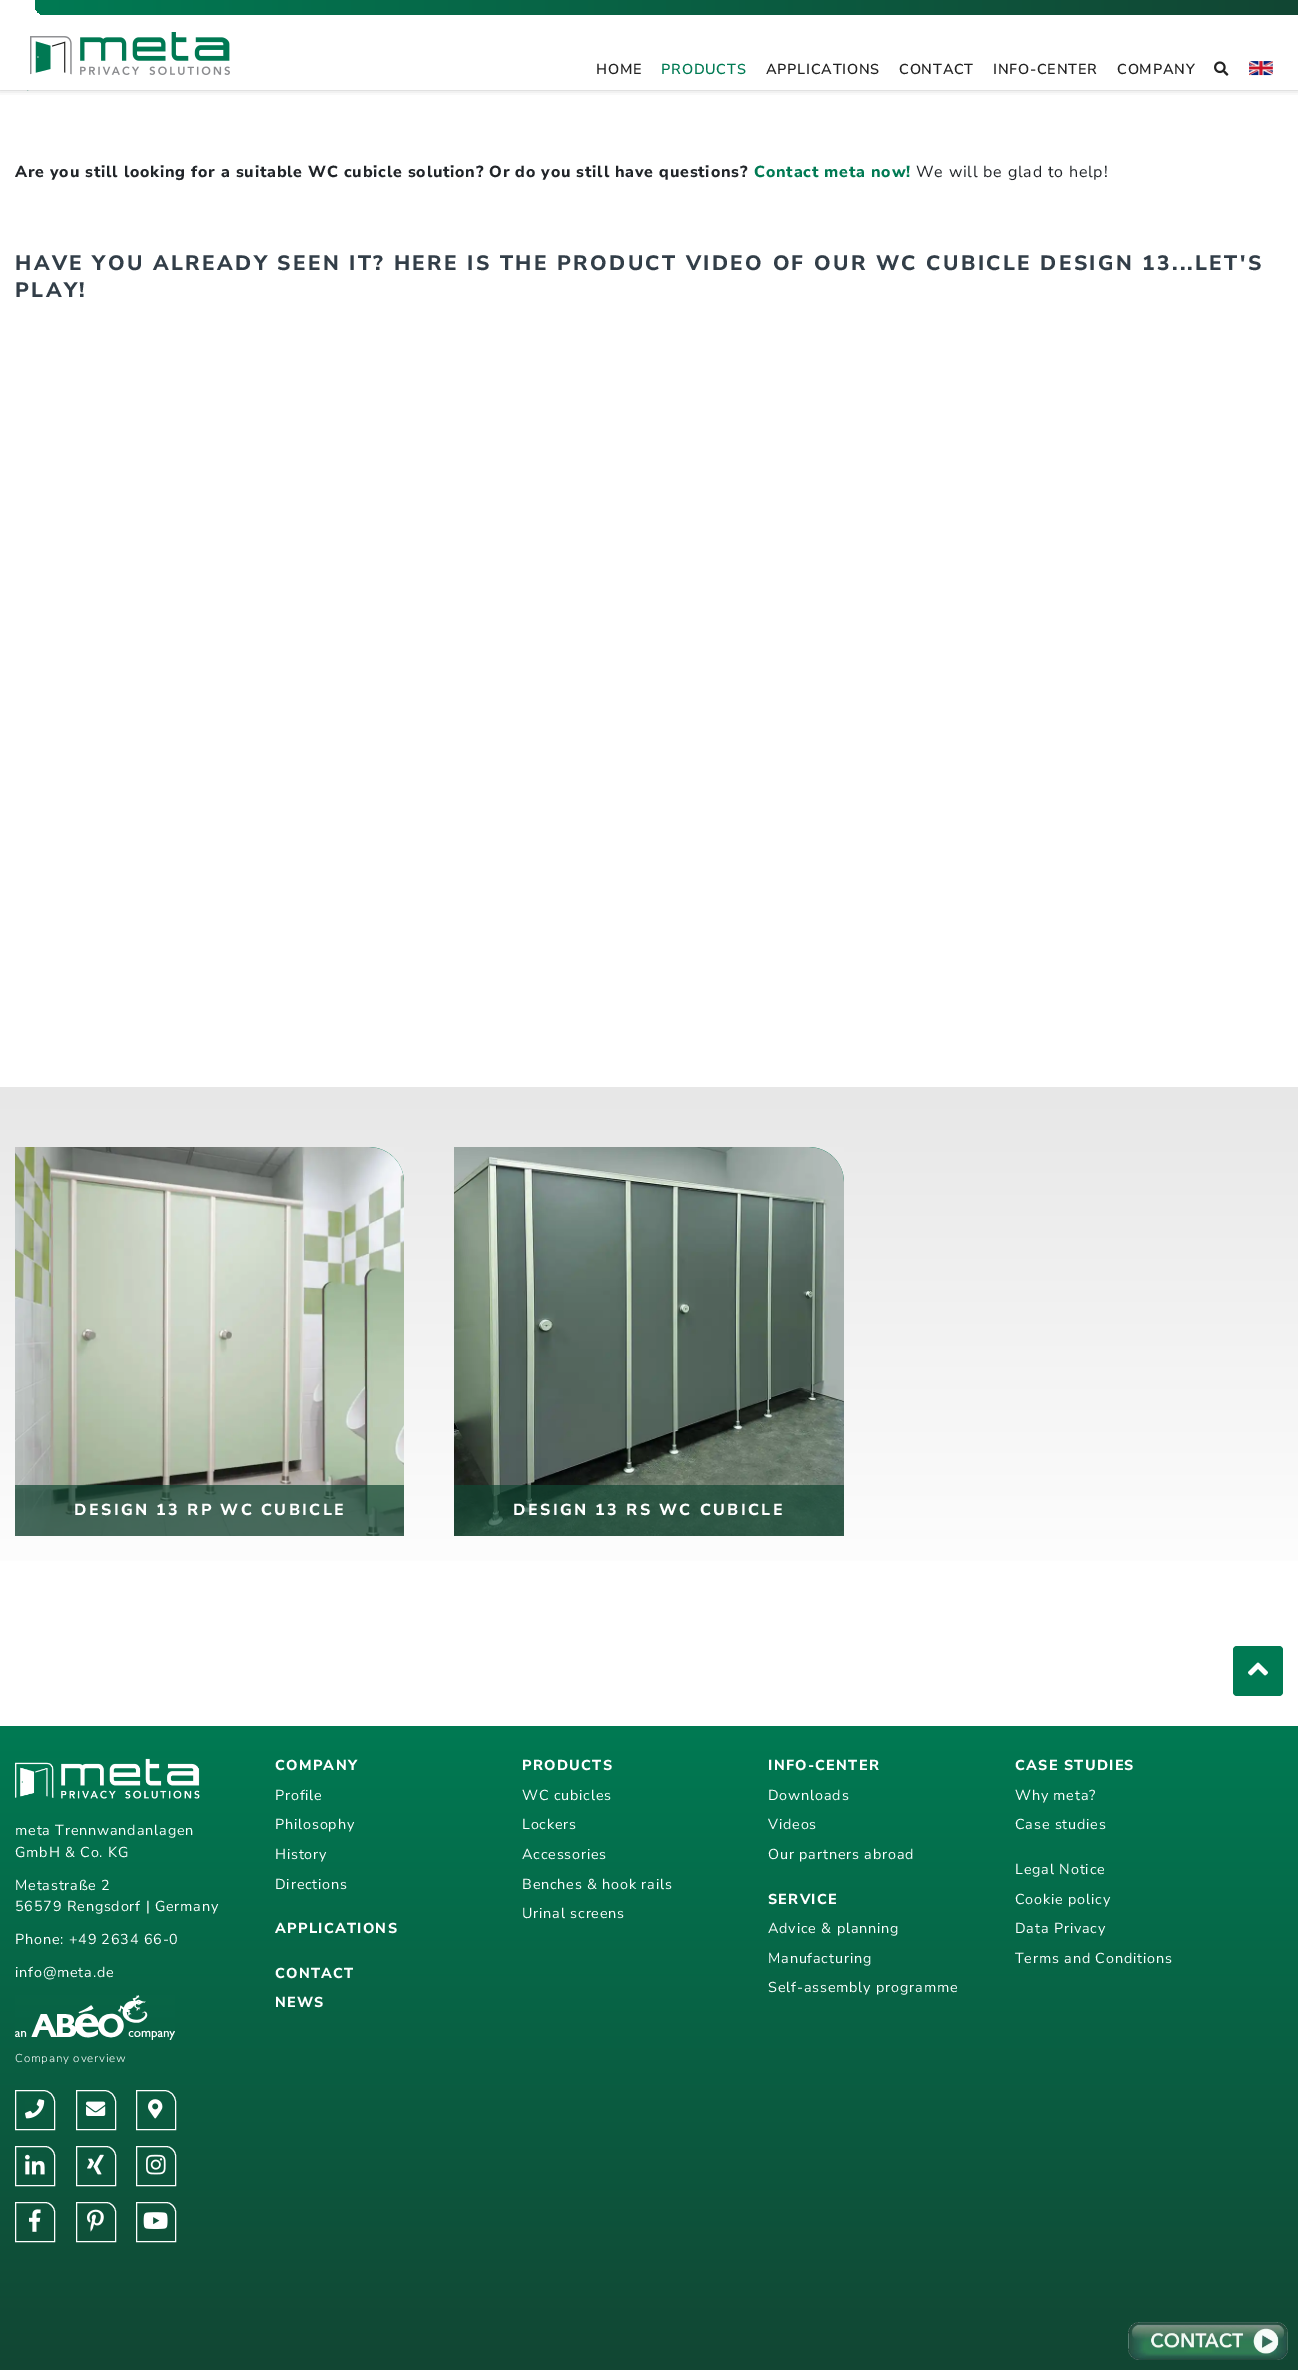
%!PS-Adobe-3.0
%%BoundingBox: 0 0 1298 2370
%%LanguageLevel: 3
%%Pages: 1
%%EndComments
%%BeginProlog
/setink { 3 { 255 div 3 1 roll } repeat setrgbcolor } def
/usefont { [ exch dup neg 0 0 3 -1 roll 0 0 ] selectfont } def
/fillbox { setink rectfill } def
/setalpha { dup .setfillconstantalpha .setstrokeconstantalpha } def
/rrect { 5 dict begin { /r /h /w /y /x } { exch def } forall
  x r add y moveto x w add y 2 copy h add r arct x w add y h add x 1 index r arct
  x y h add x y r arct x y 2 copy exch w add exch r arct closepath end } def
/softshadow { 12 dict begin { /a /b /q /h /w /y /x } { exch def } forall gsave /was 0 def
  9 -2 -9 { dup b mul 4 div /e exch def 1 sub .425 mul 2.718 exch exp 1 add a .99 .min exch div /now exch def
    1 1 now sub 1 was sub div sub setalpha /was now def
    w h .min e 2 mul add 0 gt { x e sub y e sub w e 2 mul add h e 2 mul add
      q e add b .6 mul add w h .min 2 div e add .min 0 .max rrect fill } if } for grestore end } def
/drawimage { 5 dict begin { /h /w /y /x /name } { exch def } forall
  gsave x y translate w h scale
  w h 8 [w 0 0 h 0 0] name (r) file false 3 colorimage grestore end } def
%%EndProlog
%%BeginSetup
<< /PageSize [1298 2370] /PageUsesTransparency true >> setpagedevice
%%EndSetup
%%Page: 1 1
0 .pushpdf14devicefilter
0 2370 translate 1 -1 scale
4 setmiterlimit
0 0 1298 2370 255 255 255 fillbox
(assets/img4.rgb) 27 90 2 1 drawimage
51 51 51 setink
0 -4 1298 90 0 4 1 softshadow
0 0 1298 90 255 255 255 fillbox
gsave 35 0 moveto 1298 0 lineto 1298 15 lineto 45 15 lineto 39.5 15 35 10.5 35 5 curveto closepath clip newpath
<< /ShadingType 2 /ColorSpace /DeviceRGB /Coords [35 7.5 1298 7.5] /Extend [true true] /Function << /FunctionType 2 /Domain [0 1] /C0 [0 0.478 0.325] /C1 [0.071 0.275 0.2] /N 1 >> >> shfill grestore
(assets/img1.rgb) 30 32 200 43 drawimage
/NunitoSans-SemiBold 14.4 usefont
34 34 34 setink
596 74 moveto 0.8 0 (HOME) ashow
0 122 83 setink
661 74 moveto 0.8 0 (PRODUCTS) ashow
34 34 34 setink
766 74 moveto 0.8 0 (APPLICATIONS) ashow
899 74 moveto 0.8 0 (CONTACT) ashow
993 74 moveto 0.8 0 (INFO-CENTER) ashow
1117 74 moveto 0.8 0 (COMPANY) ashow
(assets/img2.rgb) 1214 61 15 15 drawimage
(assets/img3.rgb) 1249 61 24 15 drawimage
/NunitoSans-ExtraBold 16 usefont
33 37 41 setink
15 177 moveto 0.8 0 (Are you still looking for a suitable WC cubicle solution? Or do you still have questions?) ashow
0 122 83 setink
754 177 moveto 0.8 0 (Contact meta now!) ashow
/NunitoSans-Regular 16 usefont
33 37 41 setink
916 177 moveto 0.8 0 (We will be glad to help!) ashow
/NunitoSans-ExtraBold 20.8 usefont
50 62 72 setink
15 270 moveto 2.4 0 (HAVE YOU ALREADY SEEN IT? HERE IS THE PRODUCT VIDEO OF OUR WC CUBICLE DESIGN 13...LET'S) ashow
15 297 moveto 2.4 0 (PLAY!) ashow
gsave 0 1087 moveto 1298 1087 lineto 1298 1561 lineto 0 1561 lineto closepath clip newpath
<< /ShadingType 2 /ColorSpace /DeviceRGB /Coords [649 1087 649 1616] /Extend [true true] /Function << /FunctionType 2 /Domain [0 1] /C0 [0.906 0.906 0.906] /C1 [1 1 1] /N 1 >> >> shfill grestore
gsave 15 1147 moveto 369 1147 lineto 388.5 1147 404 1162.5 404 1182 curveto 404 1536 lineto 15 1536 lineto closepath clip newpath
<< /ShadingType 2 /ColorSpace /DeviceRGB /Coords [210 1536 210 1147] /Extend [true true] /Function << /FunctionType 2 /Domain [0 1] /C0 [0.071 0.275 0.2] /C1 [0 0.478 0.325] /N 1 >> >> shfill grestore
(assets/img5.rgb) 15 1147 389 389 drawimage
0.7 setalpha
15 1485 389 51 18 70 51 fillbox
/NunitoSans-ExtraBold 16 usefont
1 setalpha
255 255 255 setink
74 1515 moveto 2.4 0 (DESIGN 13 RP WC CUBICLE) ashow
gsave 454 1147 moveto 809 1147 lineto 828.5 1147 844 1162.5 844 1182 curveto 844 1536 lineto 454 1536 lineto closepath clip newpath
<< /ShadingType 2 /ColorSpace /DeviceRGB /Coords [649 1536 649 1147] /Extend [true true] /Function << /FunctionType 2 /Domain [0 1] /C0 [0.071 0.275 0.2] /C1 [0 0.478 0.325] /N 1 >> >> shfill grestore
(assets/img6.rgb) 454 1147 390 389 drawimage
0.7 setalpha
454 1485 390 51 18 70 51 fillbox
1 setalpha
255 255 255 setink
513 1515 moveto 2.4 0 (DESIGN 13 RS WC CUBICLE) ashow
0 122 83 setink
1233 1646 50 50 4 rrect fill
(assets/img7.rgb) 1248 1662 20 14 drawimage
gsave 0 1726 moveto 1298 1726 lineto 1298 2370 lineto 0 2370 lineto closepath clip newpath
<< /ShadingType 2 /ColorSpace /DeviceRGB /Coords [649 1726 649 2370] /Extend [true true] /Function << /FunctionType 2 /Domain [0 1] /C0 [0 0.478 0.325] /C1 [0.071 0.275 0.2] /N 1 >> >> shfill grestore
(assets/img8.rgb) 15 1758 185 41 drawimage
/NunitoSans-Regular 14.4 usefont
255 255 255 setink
15 1835 moveto 0.8 0 (meta Trennwandanlagen) ashow
15 1857 moveto 0.8 0 (GmbH & Co. KG) ashow
15 1890 moveto 0.8 0 (Metastraße 2) ashow
15 1911 moveto 0.8 0 (56579 Rengsdorf | Germany) ashow
15 1944 moveto 0.8 0 (Phone: +49 2634 66-0) ashow
15 1977 moveto 0.8 0 (info@meta.de) ashow
(assets/img9.rgb) 15 1995 160 45 drawimage
/NunitoSans-Light 11.5 usefont
15 2062 moveto 0.8 0 (Company overview) ashow
15.5 2090.5 moveto 43 2090.5 lineto 49.5 2090.5 54.5 2095.5 54.5 2102 curveto 54.5 2129.5 lineto 15.5 2129.5 lineto closepath stroke
(assets/img10.rgb) 25 2099 20 20 drawimage
76.5 2090.5 moveto 104 2090.5 lineto 110.5 2090.5 115.5 2095.5 115.5 2102 curveto 115.5 2129.5 lineto 76.5 2129.5 lineto closepath stroke
(assets/img11.rgb) 86 2101 20 15 drawimage
136.5 2090.5 moveto 164 2090.5 lineto 170.5 2090.5 175.5 2095.5 175.5 2102 curveto 175.5 2129.5 lineto 136.5 2129.5 lineto closepath stroke
(assets/img12.rgb) 148 2099 15 20 drawimage
15.5 2146.5 moveto 45 2146.5 lineto 50 2146.5 54.5 2151 54.5 2156 curveto 54.5 2185.5 lineto 15.5 2185.5 lineto closepath stroke
(assets/img13.rgb) 25 2154 20 21 drawimage
76.5 2146.5 moveto 106 2146.5 lineto 111 2146.5 115.5 2151 115.5 2156 curveto 115.5 2185.5 lineto 76.5 2185.5 lineto closepath stroke
(assets/img14.rgb) 87 2154 17 21 drawimage
136.5 2146.5 moveto 166 2146.5 lineto 171 2146.5 175.5 2151 175.5 2156 curveto 175.5 2185.5 lineto 136.5 2185.5 lineto closepath stroke
(assets/img15.rgb) 146 2154 20 21 drawimage
15.5 2202.5 moveto 45 2202.5 lineto 50 2202.5 54.5 2207 54.5 2212 curveto 54.5 2241.5 lineto 15.5 2241.5 lineto closepath stroke
(assets/img16.rgb) 29 2209 12 23 drawimage
76.5 2202.5 moveto 106 2202.5 lineto 111 2202.5 115.5 2207 115.5 2212 curveto 115.5 2241.5 lineto 76.5 2241.5 lineto closepath stroke
(assets/img17.rgb) 87 2209 17 23 drawimage
136.5 2202.5 moveto 166 2202.5 lineto 171 2202.5 175.5 2207 175.5 2212 curveto 175.5 2241.5 lineto 136.5 2241.5 lineto closepath stroke
(assets/img18.rgb) 143 2212 25 17 drawimage
/NunitoSans-ExtraBold 14.4 usefont
275 1770 moveto 1.25 0 (COMPANY) ashow
/NunitoSans-Regular 14.4 usefont
275 1800 moveto 0.8 0 (Profile) ashow
275 1829 moveto 0.8 0 (Philosophy) ashow
275 1859 moveto 0.8 0 (History) ashow
275 1889 moveto 0.8 0 (Directions) ashow
/NunitoSans-ExtraBold 14.4 usefont
275 1933 moveto 1.25 0 (APPLICATIONS) ashow
275 1978 moveto 1.25 0 (CONTACT) ashow
275 2007 moveto 1.25 0 (NEWS) ashow
522 1770 moveto 1.25 0 (PRODUCTS) ashow
/NunitoSans-Regular 14.4 usefont
522 1800 moveto 0.8 0 (WC cubicles) ashow
522 1829 moveto 0.8 0 (Lockers) ashow
522 1859 moveto 0.8 0 (Accessories) ashow
522 1889 moveto 0.8 0 (Benches & hook rails) ashow
522 1918 moveto 0.8 0 (Urinal screens) ashow
/NunitoSans-ExtraBold 14.4 usefont
768 1770 moveto 1.25 0 (INFO-CENTER) ashow
/NunitoSans-Regular 14.4 usefont
768 1800 moveto 0.8 0 (Downloads) ashow
768 1829 moveto 0.8 0 (Videos) ashow
768 1859 moveto 0.8 0 (Our partners abroad) ashow
/NunitoSans-ExtraBold 14.4 usefont
768 1904 moveto 1.25 0 (SERVICE) ashow
/NunitoSans-Regular 14.4 usefont
768 1933 moveto 0.8 0 (Advice & planning) ashow
768 1963 moveto 0.8 0 (Manufacturing) ashow
768 1992 moveto 0.8 0 (Self-assembly programme) ashow
/NunitoSans-ExtraBold 14.4 usefont
1015 1770 moveto 1.25 0 (CASE STUDIES) ashow
/NunitoSans-Regular 14.4 usefont
1015 1800 moveto 0.8 0 (Why meta?) ashow
1015 1829 moveto 0.8 0 (Case studies) ashow
1015 1874 moveto 0.8 0 (Legal Notice) ashow
1015 1904 moveto 0.8 0 (Cookie policy) ashow
1015 1933 moveto 0.8 0 (Data Privacy) ashow
1015 1963 moveto 0.8 0 (Terms and Conditions) ashow
(assets/img19.rgb) 1128 2322 160 38 drawimage
.poppdf14devicefilter showpage
%%EOF
